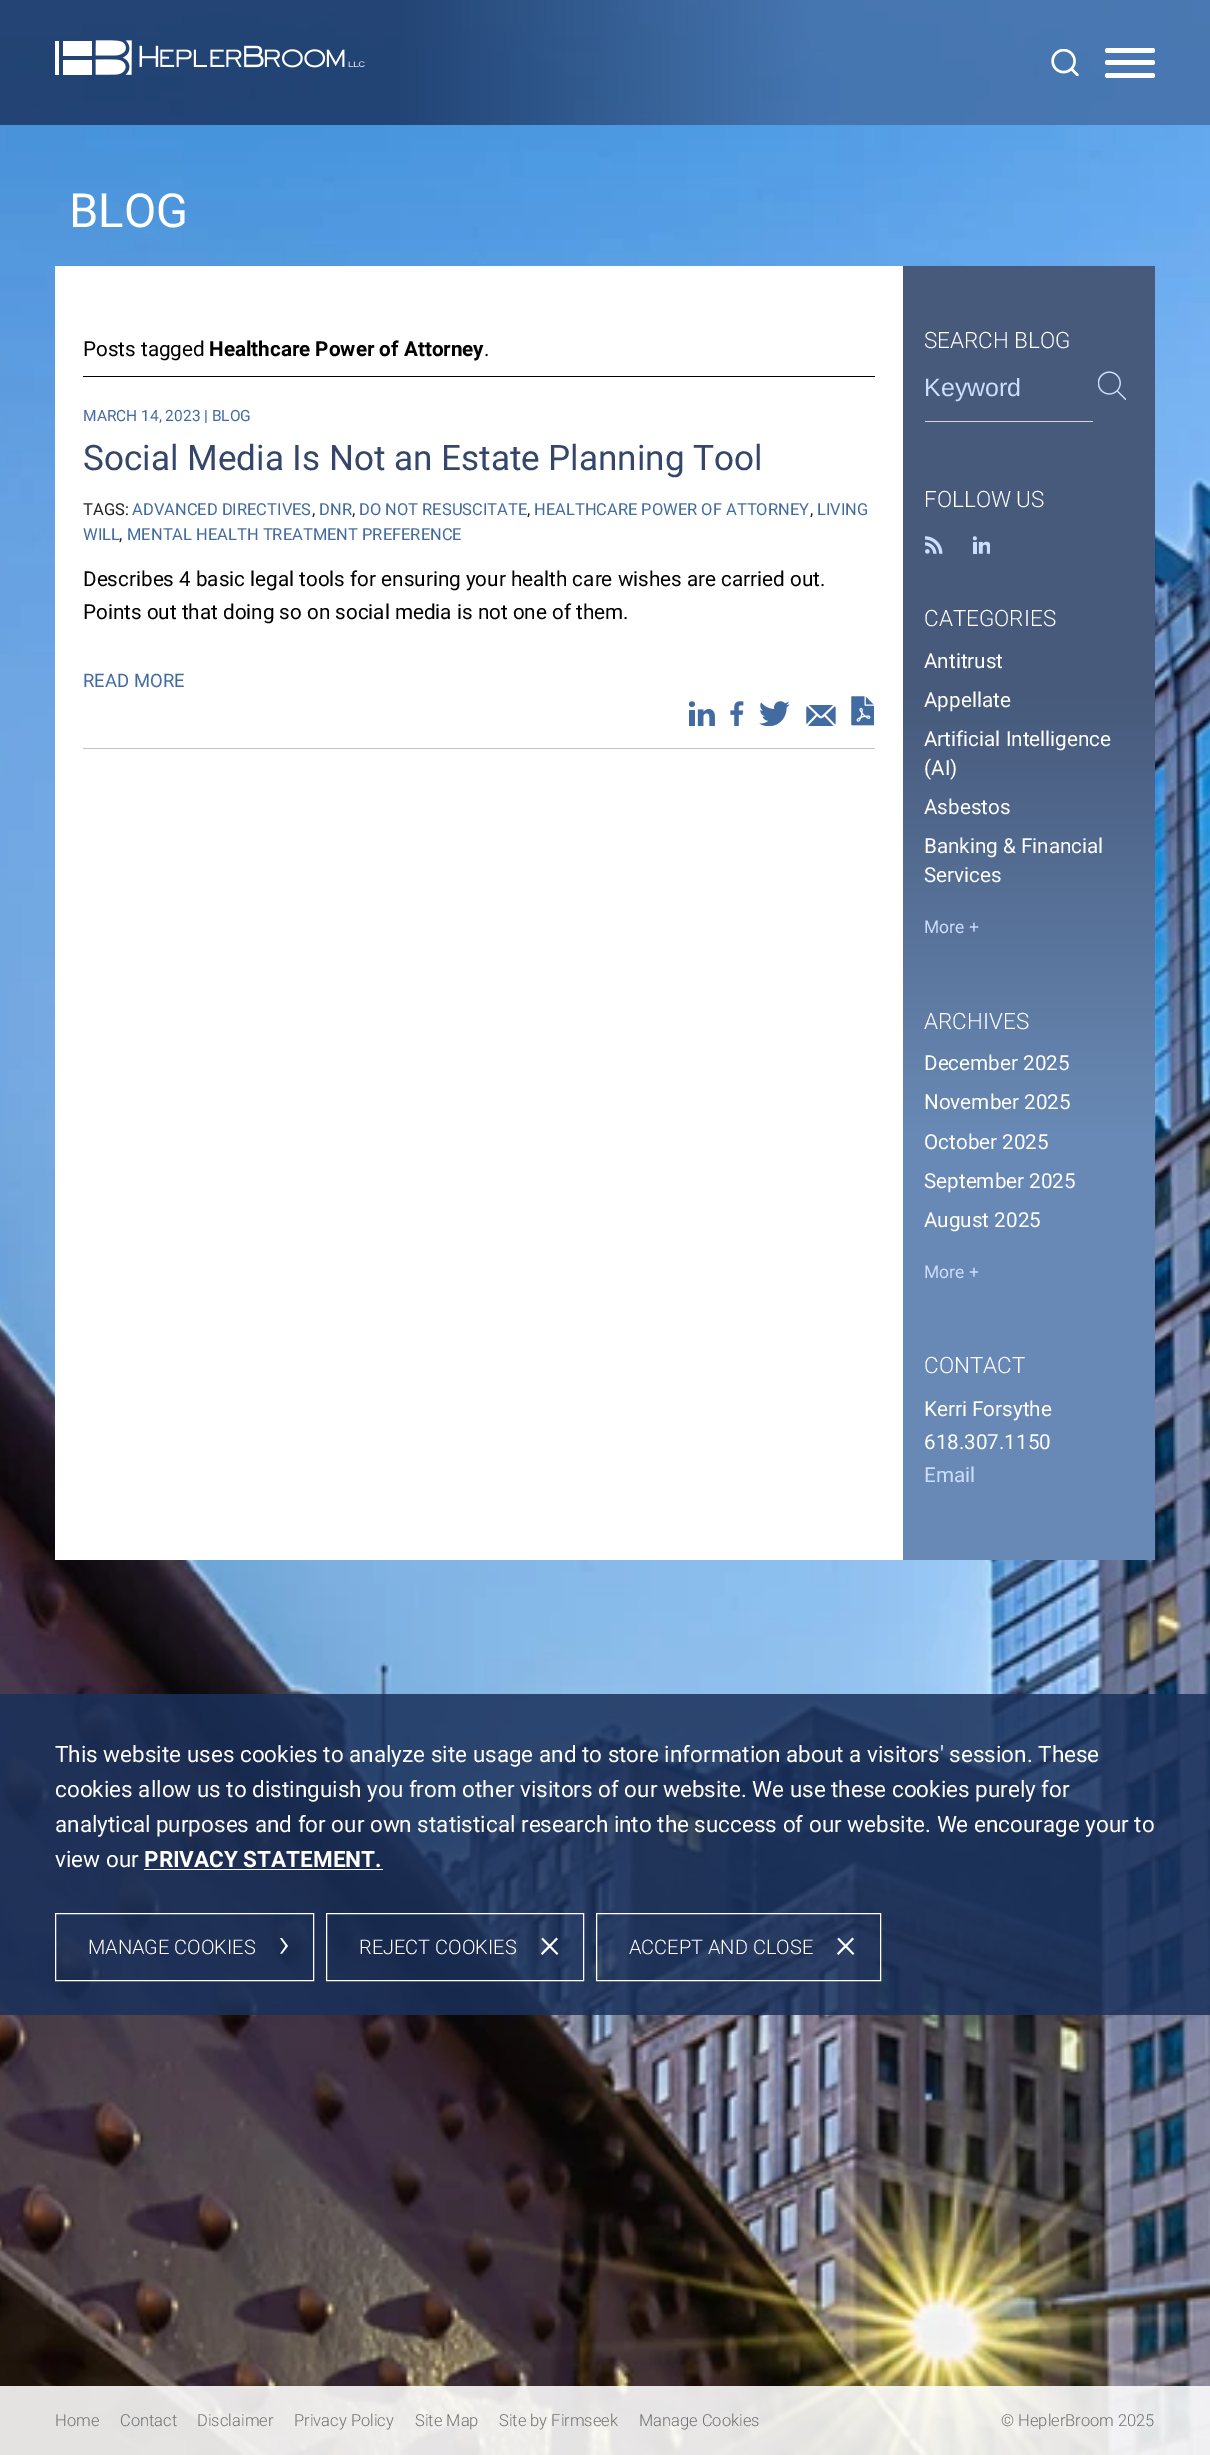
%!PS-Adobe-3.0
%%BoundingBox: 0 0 1210 2455
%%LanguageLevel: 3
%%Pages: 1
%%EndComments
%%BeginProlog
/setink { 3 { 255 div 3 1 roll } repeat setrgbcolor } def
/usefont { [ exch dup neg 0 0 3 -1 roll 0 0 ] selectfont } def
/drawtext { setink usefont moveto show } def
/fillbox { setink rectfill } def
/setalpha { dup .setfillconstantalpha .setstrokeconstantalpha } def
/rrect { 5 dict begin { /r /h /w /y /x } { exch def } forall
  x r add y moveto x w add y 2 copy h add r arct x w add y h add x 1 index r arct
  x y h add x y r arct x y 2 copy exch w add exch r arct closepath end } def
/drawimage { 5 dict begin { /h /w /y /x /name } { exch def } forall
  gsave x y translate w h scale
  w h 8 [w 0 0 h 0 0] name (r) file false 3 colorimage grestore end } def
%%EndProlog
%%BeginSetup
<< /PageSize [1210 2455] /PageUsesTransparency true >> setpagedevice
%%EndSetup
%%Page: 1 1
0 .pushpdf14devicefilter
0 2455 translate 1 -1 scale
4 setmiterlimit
0 0 1210 2455 255 255 255 fillbox
(assets/img1.rgb) 0 0 1210 2455 drawimage
(assets/img2.rgb) 55 40 310 35 drawimage
(assets/img3.rgb) 1051 49 28 27 drawimage
1105 48 50 5 2.5 rrect fill
1105 60 50 5 2.5 rrect fill
1105 73 50 5 2.5 rrect fill
(BLOG) 69 227 /Roboto-Regular 47 255 255 255 drawtext
55 266 848 1294 255 255 255 fillbox
83 376 792 1 0 0 0 fillbox
(Posts tagged) 83 356 /Roboto-Regular 20.65 0 0 0 drawtext
(Healthcare Power of Attorney) 209 356 /Roboto-Bold 20.65 0 0 0 drawtext
(.) 484 356 /Roboto-Regular 20.65 0 0 0 drawtext
(MARCH 14, 2023 | BLOG) 83 421 /Roboto-Regular 15.5 66 107 162 drawtext
(Social Media Is Not an Estate Planning Tool) 83 470 /Roboto-Regular 35.1 52 71 106 drawtext
(TAGS:) 83 515 /Roboto-Regular 16.5 33 33 33 drawtext
(ADVANCED DIRECTIVES) 132 515 /Roboto-Regular 16.5 66 107 162 drawtext
(,) 312 515 /Roboto-Regular 16.5 33 33 33 drawtext
(DNR) 319 515 /Roboto-Regular 16.5 66 107 162 drawtext
(,) 352 515 /Roboto-Regular 16.5 33 33 33 drawtext
(DO NOT RESUSCITATE) 359 515 /Roboto-Regular 16.5 66 107 162 drawtext
(,) 527 515 /Roboto-Regular 16.5 33 33 33 drawtext
(HEALTHCARE POWER OF ATTORNEY) 534 515 /Roboto-Regular 16.5 66 107 162 drawtext
(,) 810 515 /Roboto-Regular 16.5 33 33 33 drawtext
(LIVING) 817 515 /Roboto-Regular 16.5 66 107 162 drawtext
(WILL) 83 540 /Roboto-Regular 16.5 66 107 162 drawtext
(,) 119 540 /Roboto-Regular 16.5 33 33 33 drawtext
(MENTAL HEALTH TREATMENT PREFERENCE) 127 540 /Roboto-Regular 16.5 66 107 162 drawtext
(Describes 4 basic legal tools for ensuring your health care wishes are carried out.) 83 586 /Roboto-Regular 20.65 0 0 0 drawtext
(Points out that doing so on social media is not one of them.) 83 619 /Roboto-Regular 20.65 0 0 0 drawtext
(READ MORE) 83 687 /Roboto-Regular 18.5 66 107 162 drawtext
83 748 792 1 196 196 196 fillbox
(assets/img4.rgb) 689 701 26 25 drawimage
(assets/img5.rgb) 730 701 14 25 drawimage
(assets/img6.rgb) 759 701 31 25 drawimage
(assets/img7.rgb) 806 705 30 21 drawimage
(assets/img8.rgb) 851 696 24 30 drawimage
gsave 903 266 moveto 1155 266 lineto 1155 1560 lineto 903 1560 lineto closepath clip newpath
<< /ShadingType 2 /ColorSpace /DeviceRGB /Coords [1029 266 1029 1560] /Extend [true true] /Function << /FunctionType 3 /Domain [0 1] /Functions [<< /FunctionType 2 /Domain [0 1] /C0 [0.278 0.353 0.482] /C1 [0.278 0.353 0.482] /N 1 >> << /FunctionType 2 /Domain [0 1] /C0 [0.278 0.353 0.482] /C1 [0.408 0.537 0.71] /N 1 >> << /FunctionType 2 /Domain [0 1] /C0 [0.408 0.537 0.71] /C1 [0.408 0.537 0.71] /N 1 >>] /Bounds [0.33 0.67] /Encode [0 1 0 1 0 1] >> >> shfill grestore
(SEARCH BLOG) 924 348 /Roboto-Light 22.5 255 255 255 drawtext
(Keyword) 924 396 /LiberationSans-Regular 25 204 221 255 drawtext
925 421 168 1 214 214 214 fillbox
(assets/img9.rgb) 1098 371 28 29 drawimage
(FOLLOW US) 924 507 /Roboto-Light 22.5 255 255 255 drawtext
(assets/img10.rgb) 925 536 18 18 drawimage
(assets/img11.rgb) 973 536 17 18 drawimage
(CATEGORIES) 924 626 /Roboto-Light 22.5 255 255 255 drawtext
(Antitrust) 924 668 /Roboto-Regular 20.65 255 255 255 drawtext
(Appellate) 924 707 /Roboto-Regular 20.65 255 255 255 drawtext
(Artificial Intelligence) 924 746 /Roboto-Regular 20.65 255 255 255 drawtext
(\(AI\)) 924 775 /Roboto-Regular 20.65 255 255 255 drawtext
(Asbestos) 924 814 /Roboto-Regular 20.65 255 255 255 drawtext
(Banking & Financial) 924 853 /Roboto-Regular 20.65 255 255 255 drawtext
(Services) 924 882 /Roboto-Regular 20.65 255 255 255 drawtext
(More +) 924 933 /Roboto-Regular 17.5 204 221 255 drawtext
(ARCHIVES) 924 1029 /Roboto-Light 22.5 255 255 255 drawtext
(December 2025) 924 1070 /Roboto-Regular 20.65 255 255 255 drawtext
(November 2025) 924 1109 /Roboto-Regular 20.65 255 255 255 drawtext
(October 2025) 924 1149 /Roboto-Regular 20.65 255 255 255 drawtext
(September 2025) 924 1188 /Roboto-Regular 20.65 255 255 255 drawtext
(August 2025) 924 1227 /Roboto-Regular 20.65 255 255 255 drawtext
(More +) 924 1278 /Roboto-Regular 17.5 204 221 255 drawtext
(CONTACT) 924 1373 /Roboto-Light 22.5 255 255 255 drawtext
(Kerri Forsythe) 924 1416 /Roboto-Regular 20.65 255 255 255 drawtext
(618.307.1150) 924 1449 /Roboto-Regular 20.65 255 255 255 drawtext
(Email) 924 1482 /Roboto-Regular 20.65 204 221 255 drawtext
0.85 setalpha
0 1694 1210 321 25 48 90 fillbox
1 setalpha
(This website uses cookies to analyze site usage and to store information about a visitors' session. These) 55 1762 /Roboto-Regular 22.5 255 255 255 drawtext
(cookies allow us to distinguish you from other visitors of our website. We use these cookies purely for) 55 1797 /Roboto-Regular 22.5 255 255 255 drawtext
(analytical purposes and for our own statistical research into the success of our website. We encourage your to) 55 1832 /Roboto-Regular 22.5 255 255 255 drawtext
(view our) 55 1867 /Roboto-Regular 22.5 255 255 255 drawtext
(PRIVACY STATEMENT.) 144 1867 /Roboto-Bold 22.5 255 255 255 drawtext
144 1869 239 1 255 255 255 fillbox
55.5 1913.5 258 67 rectstroke
(MANAGE COOKIES) 88 1954 /Roboto-Light 20 255 255 255 drawtext
(›) 278 1957 /Roboto-Light 41 255 255 255 drawtext
326.5 1913.5 257 67 rectstroke
(REJECT COOKIES) 359 1954 /Roboto-Light 20 255 255 255 drawtext
(×) 539 1957 /Roboto-Light 41 255 255 255 drawtext
596.5 1913.5 284 67 rectstroke
(ACCEPT AND CLOSE) 629 1954 /Roboto-Light 20 255 255 255 drawtext
(×) 835 1957 /Roboto-Light 41 255 255 255 drawtext
0.88 setalpha
0 2386 1210 69 255 255 255 fillbox
1 setalpha
(Home) 55 2426 /Roboto-Light 16.5 112 112 112 drawtext
(Contact) 120 2426 /Roboto-Light 16.5 112 112 112 drawtext
(Disclaimer) 197 2426 /Roboto-Light 16.5 112 112 112 drawtext
(Privacy Policy) 294 2426 /Roboto-Light 16.5 112 112 112 drawtext
(Site Map) 415 2426 /Roboto-Light 16.5 112 112 112 drawtext
(Site by Firmseek) 499 2426 /Roboto-Light 16.5 112 112 112 drawtext
(Manage Cookies) 639 2426 /Roboto-Light 16.5 112 112 112 drawtext
(© HeplerBroom 2025) 1001 2426 /Roboto-Light 16.5 112 112 112 drawtext
.poppdf14devicefilter showpage
%%EOF
